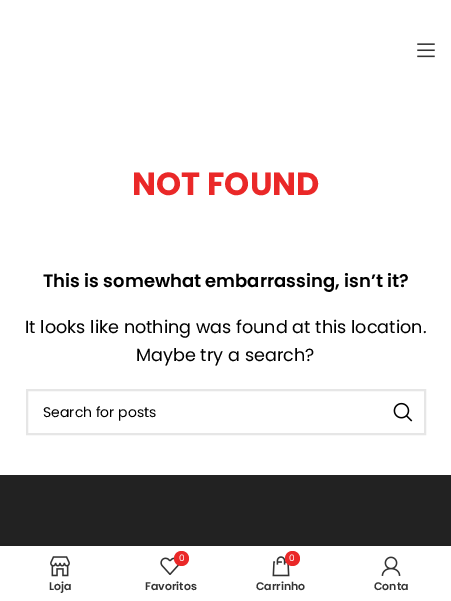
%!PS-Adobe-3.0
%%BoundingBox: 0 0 451 601
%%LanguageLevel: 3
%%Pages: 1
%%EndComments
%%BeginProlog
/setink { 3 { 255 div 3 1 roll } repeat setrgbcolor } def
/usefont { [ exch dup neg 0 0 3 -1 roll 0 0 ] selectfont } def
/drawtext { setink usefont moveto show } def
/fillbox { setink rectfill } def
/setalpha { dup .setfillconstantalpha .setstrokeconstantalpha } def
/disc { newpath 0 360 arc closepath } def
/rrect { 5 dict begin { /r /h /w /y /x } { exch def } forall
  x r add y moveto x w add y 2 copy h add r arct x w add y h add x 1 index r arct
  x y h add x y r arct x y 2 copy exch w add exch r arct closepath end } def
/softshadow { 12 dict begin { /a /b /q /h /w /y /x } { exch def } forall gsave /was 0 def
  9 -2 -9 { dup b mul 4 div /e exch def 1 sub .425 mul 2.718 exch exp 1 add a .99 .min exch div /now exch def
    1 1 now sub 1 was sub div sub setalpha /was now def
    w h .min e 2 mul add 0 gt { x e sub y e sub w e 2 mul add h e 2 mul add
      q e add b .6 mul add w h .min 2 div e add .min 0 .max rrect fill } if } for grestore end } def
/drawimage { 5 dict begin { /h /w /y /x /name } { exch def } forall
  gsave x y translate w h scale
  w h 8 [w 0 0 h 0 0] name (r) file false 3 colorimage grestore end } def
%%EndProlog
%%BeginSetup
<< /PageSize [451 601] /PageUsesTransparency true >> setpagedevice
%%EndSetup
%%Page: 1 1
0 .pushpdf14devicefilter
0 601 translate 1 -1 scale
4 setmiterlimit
0 0 451 601 255 255 255 fillbox
(assets/img1.rgb) 417 43 18 15 drawimage
(NOT FOUND) 132 195 /Poppins-Bold 32 234 40 40 drawtext
(This is somewhat embarrassing, isn’t it?) 43 287 /Poppins-SemiBold 18 0 0 0 drawtext
(It looks like nothing was found at this location.) 25 333 /Poppins-Regular 17.6 0 0 0 drawtext
(Maybe try a search?) 136 361 /Poppins-Regular 17.6 0 0 0 drawtext
230 230 230 setink
2 setlinewidth
27 390 398 44 rectstroke
(Search for posts) 43 417 /Poppins-Regular 14 0 0 0 drawtext
(assets/img2.rgb) 393 402 20 20 drawimage
0 475 451 71 34 34 34 fillbox
0 0 0 setink
0 546 451 55 0 4.5 0.12 softshadow
0 546 451 55 255 255 255 fillbox
(assets/img3.rgb) 50 556 20 21 drawimage
(Loja) 49 590 /Poppins-SemiBold 11 51 51 51 drawtext
(assets/img4.rgb) 160 557 20 18 drawimage
234 40 40 setink
181.5 558.5 7.5 disc fill
(0) 179 561 /Poppins-Regular 9 255 255 255 drawtext
(Favoritos) 145 590 /Poppins-SemiBold 11 51 51 51 drawtext
(assets/img5.rgb) 272 556 18 21 drawimage
234 40 40 setink
292.5 558.5 7.5 disc fill
(0) 289 561 /Poppins-Regular 9 255 255 255 drawtext
(Carrinho) 256 590 /Poppins-SemiBold 11 51 51 51 drawtext
(assets/img6.rgb) 381 556 20 20 drawimage
(Conta) 374 590 /Poppins-SemiBold 11 51 51 51 drawtext
.poppdf14devicefilter showpage
%%EOF
